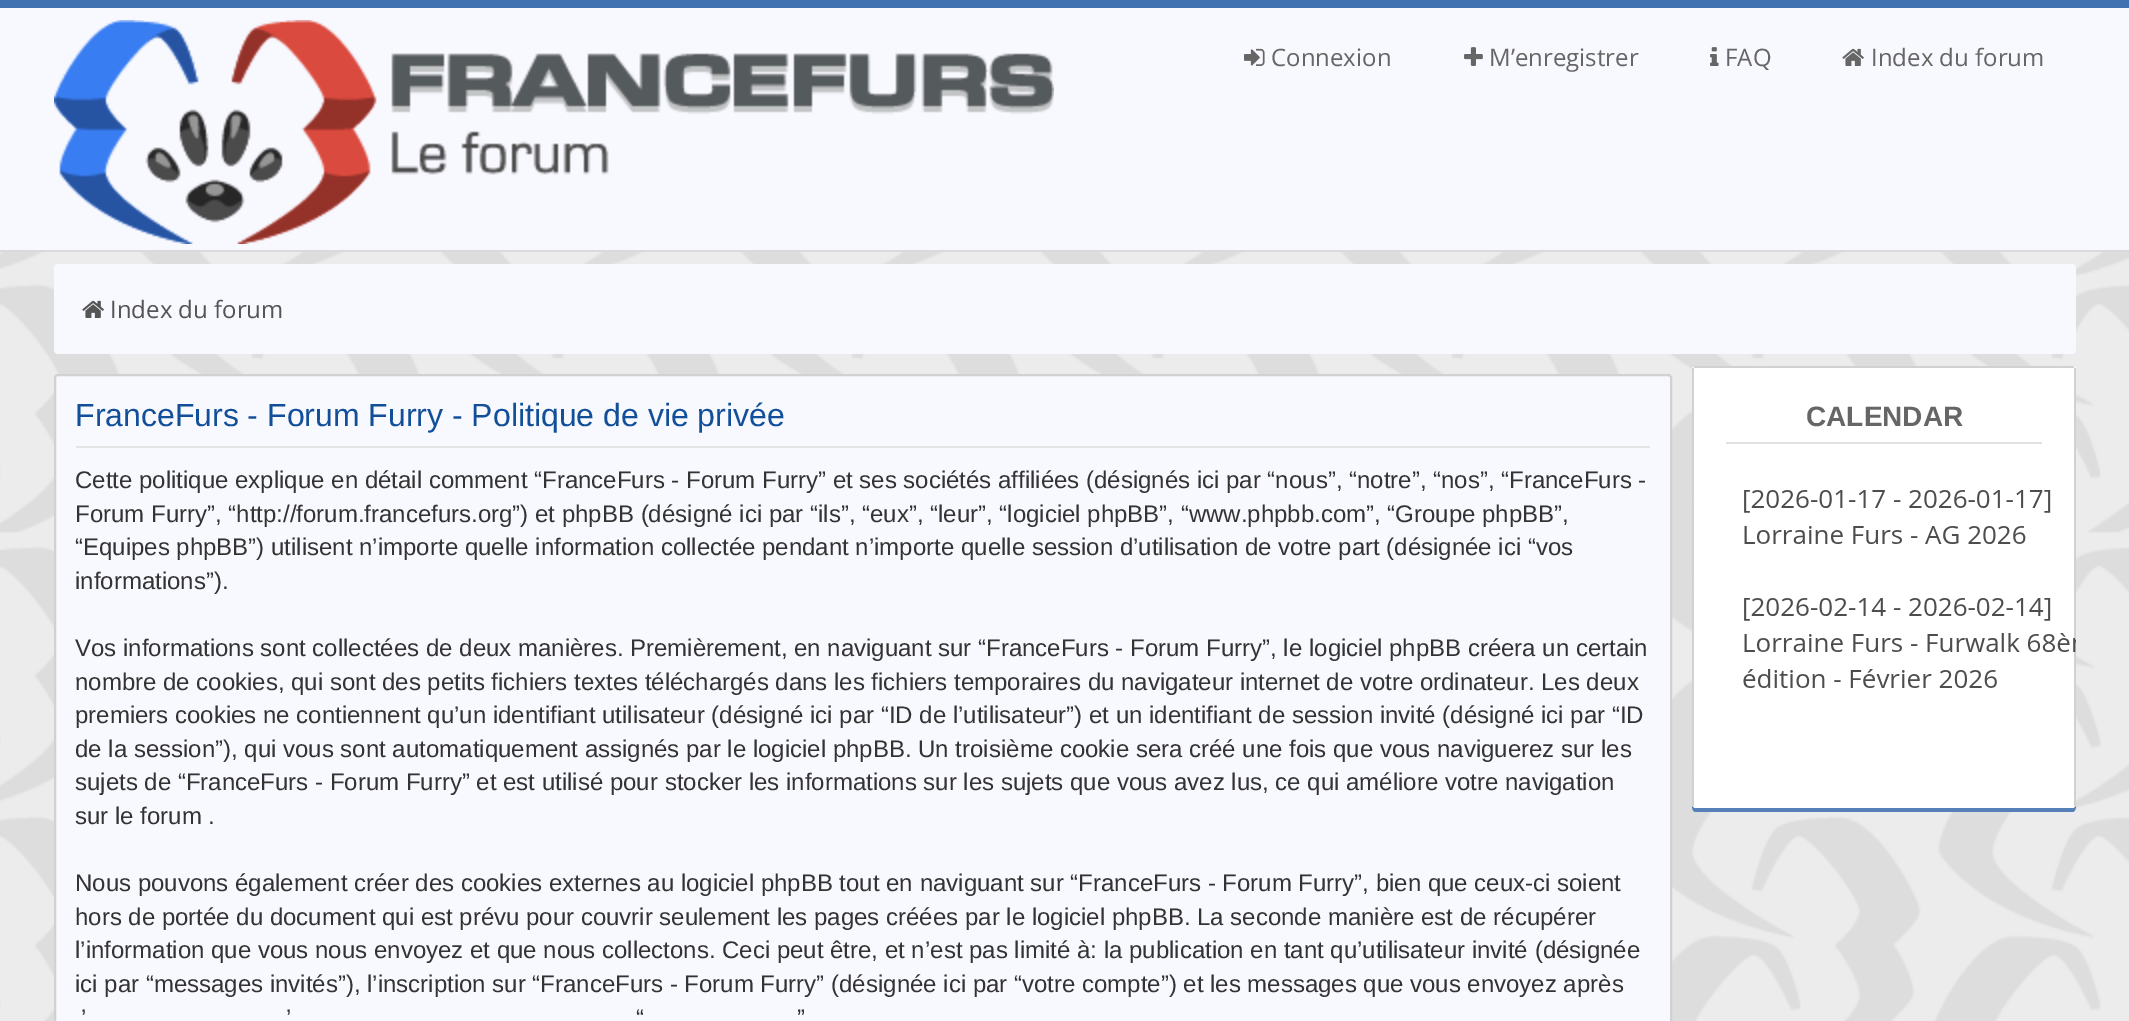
%!PS-Adobe-3.0
%%BoundingBox: 0 0 2129 1021
%%LanguageLevel: 3
%%Pages: 1
%%EndComments
%%BeginProlog
/setink { 3 { 255 div 3 1 roll } repeat setrgbcolor } def
/usefont { [ exch dup neg 0 0 3 -1 roll 0 0 ] selectfont } def
/drawtext { setink usefont moveto show } def
/fillbox { setink rectfill } def
/rrect { 5 dict begin { /r /h /w /y /x } { exch def } forall
  x r add y moveto x w add y 2 copy h add r arct x w add y h add x 1 index r arct
  x y h add x y r arct x y 2 copy exch w add exch r arct closepath end } def
/drawimage { 5 dict begin { /h /w /y /x /name } { exch def } forall
  gsave x y translate w h scale
  w h 8 [w 0 0 h 0 0] name (r) file false 3 colorimage grestore end } def
%%EndProlog
%%BeginSetup
<< /PageSize [2129 1021] >> setpagedevice
%%EndSetup
%%Page: 1 1
0 1021 translate 1 -1 scale
4 setmiterlimit
0 0 2129 1021 255 255 255 fillbox
(assets/img1.rgb) 0 252 2129 769 drawimage
0 8 2129 242 248 248 255 fillbox
0 0 2129 8 64 113 177 fillbox
0 250 2129 2 218 218 218 fillbox
(assets/img2.rgb) 54 20 1000 224 drawimage
(assets/img3.rgb) 1244 48 21 18 drawimage
(Connexion) 1271 66 /OpenSans-Regular 24 102 102 102 drawtext
(assets/img4.rgb) 1464 47 19 19 drawimage
(M’enregistrer) 1489 66 /OpenSans-Regular 24 102 102 102 drawtext
(assets/img5.rgb) 1710 47 9 19 drawimage
(FAQ) 1725 66 /OpenSans-Regular 24 102 102 102 drawtext
(assets/img6.rgb) 1842 48 22 18 drawimage
(Index du forum) 1871 66 /OpenSans-Regular 24 102 102 102 drawtext
248 248 255 setink
54 264 2022 90 4 rrect fill
(assets/img7.rgb) 82 300 22 18 drawimage
(Index du forum) 110 318 /OpenSans-Regular 24 85 85 85 drawtext
248 248 255 setink
55 375 1616 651 3 rrect gsave fill grestore
209 209 209 setink
2 setlinewidth
stroke
76 446 1574 2 228 228 228 fillbox
(FranceFurs - Forum Furry - Politique de vie privée) 75 426 /LiberationSans-Regular 32 17 80 152 drawtext
(Cette politique explique en détail comment “FranceFurs - Forum Furry” et ses sociétés affiliées \(désignés ici par “nous”, “notre”, “nos”, “FranceFurs -) 75 488 /LiberationSans-Regular 24 51 51 51 drawtext
(Forum Furry”, “http://forum.francefurs.org”\) et phpBB \(désigné ici par “ils”, “eux”, “leur”, “logiciel phpBB”, “www.phpbb.com”, “Groupe phpBB”,) 75 522 /LiberationSans-Regular 24 51 51 51 drawtext
(“Equipes phpBB”\) utilisent n’importe quelle information collectée pendant n’importe quelle session d’utilisation de votre part \(désignée ici “vos) 75 555 /LiberationSans-Regular 24 51 51 51 drawtext
(informations”\).) 75 589 /LiberationSans-Regular 24 51 51 51 drawtext
(Vos informations sont collectées de deux manières. Premièrement, en naviguant sur “FranceFurs - Forum Furry”, le logiciel phpBB créera un certain) 75 656 /LiberationSans-Regular 24 51 51 51 drawtext
(nombre de cookies, qui sont des petits fichiers textes téléchargés dans les fichiers temporaires du navigateur internet de votre ordinateur. Les deux) 75 690 /LiberationSans-Regular 24 51 51 51 drawtext
(premiers cookies ne contiennent qu’un identifiant utilisateur \(désigné ici par “ID de l’utilisateur”\) et un identifiant de session invité \(désigné ici par “ID) 75 723 /LiberationSans-Regular 24 51 51 51 drawtext
(de la session”\), qui vous sont automatiquement assignés par le logiciel phpBB. Un troisième cookie sera créé une fois que vous naviguerez sur les) 75 757 /LiberationSans-Regular 24 51 51 51 drawtext
(sujets de “FranceFurs - Forum Furry” et est utilisé pour stocker les informations sur les sujets que vous avez lus, ce qui améliore votre navigation) 75 790 /LiberationSans-Regular 24 51 51 51 drawtext
(sur le forum .) 75 824 /LiberationSans-Regular 24 51 51 51 drawtext
(Nous pouvons également créer des cookies externes au logiciel phpBB tout en naviguant sur “FranceFurs - Forum Furry”, bien que ceux-ci soient) 75 891 /LiberationSans-Regular 24 51 51 51 drawtext
(hors de portée du document qui est prévu pour couvrir seulement les pages créées par le logiciel phpBB. La seconde manière est de récupérer) 75 925 /LiberationSans-Regular 24 51 51 51 drawtext
(l’information que vous nous envoyez et que nous collectons. Ceci peut être, et n’est pas limité à: la publication en tant qu’utilisateur invité \(désignée) 75 958 /LiberationSans-Regular 24 51 51 51 drawtext
(ici par “messages invités”\), l’inscription sur “FranceFurs - Forum Furry” \(désignée ici par “votre compte”\) et les messages que vous envoyez après) 75 992 /LiberationSans-Regular 24 51 51 51 drawtext
(’) 81 1026 /LiberationSans-Regular 24 51 51 51 drawtext
(’) 286 1026 /LiberationSans-Regular 24 51 51 51 drawtext
(“) 636 1026 /LiberationSans-Regular 24 51 51 51 drawtext
(”) 797 1026 /LiberationSans-Regular 24 51 51 51 drawtext
85 128 184 setink
1692 804 moveto 1692 807 1692 812 1696 812 curveto 2072 812 lineto 2076 812 2076 807 2076 804 curveto 2076 806 2074 808 2072 808 curveto 1696 808 lineto 1694 808 1692 806 1692 804 curveto closepath fill
255 255 255 setink
1692 366 384 442 4 rrect fill
1694 366 380 2 209 209 209 fillbox
2074 368 2 438 209 209 209 fillbox
1692 368 2 438 209 209 209 fillbox
1726 442 316 2 226 226 226 fillbox
(CALENDAR) 1806 426 /LiberationSans-Bold 28 102 102 102 drawtext
(assets/img8.rgb) 1743 490 333 198 drawimage
showpage
%%EOF
